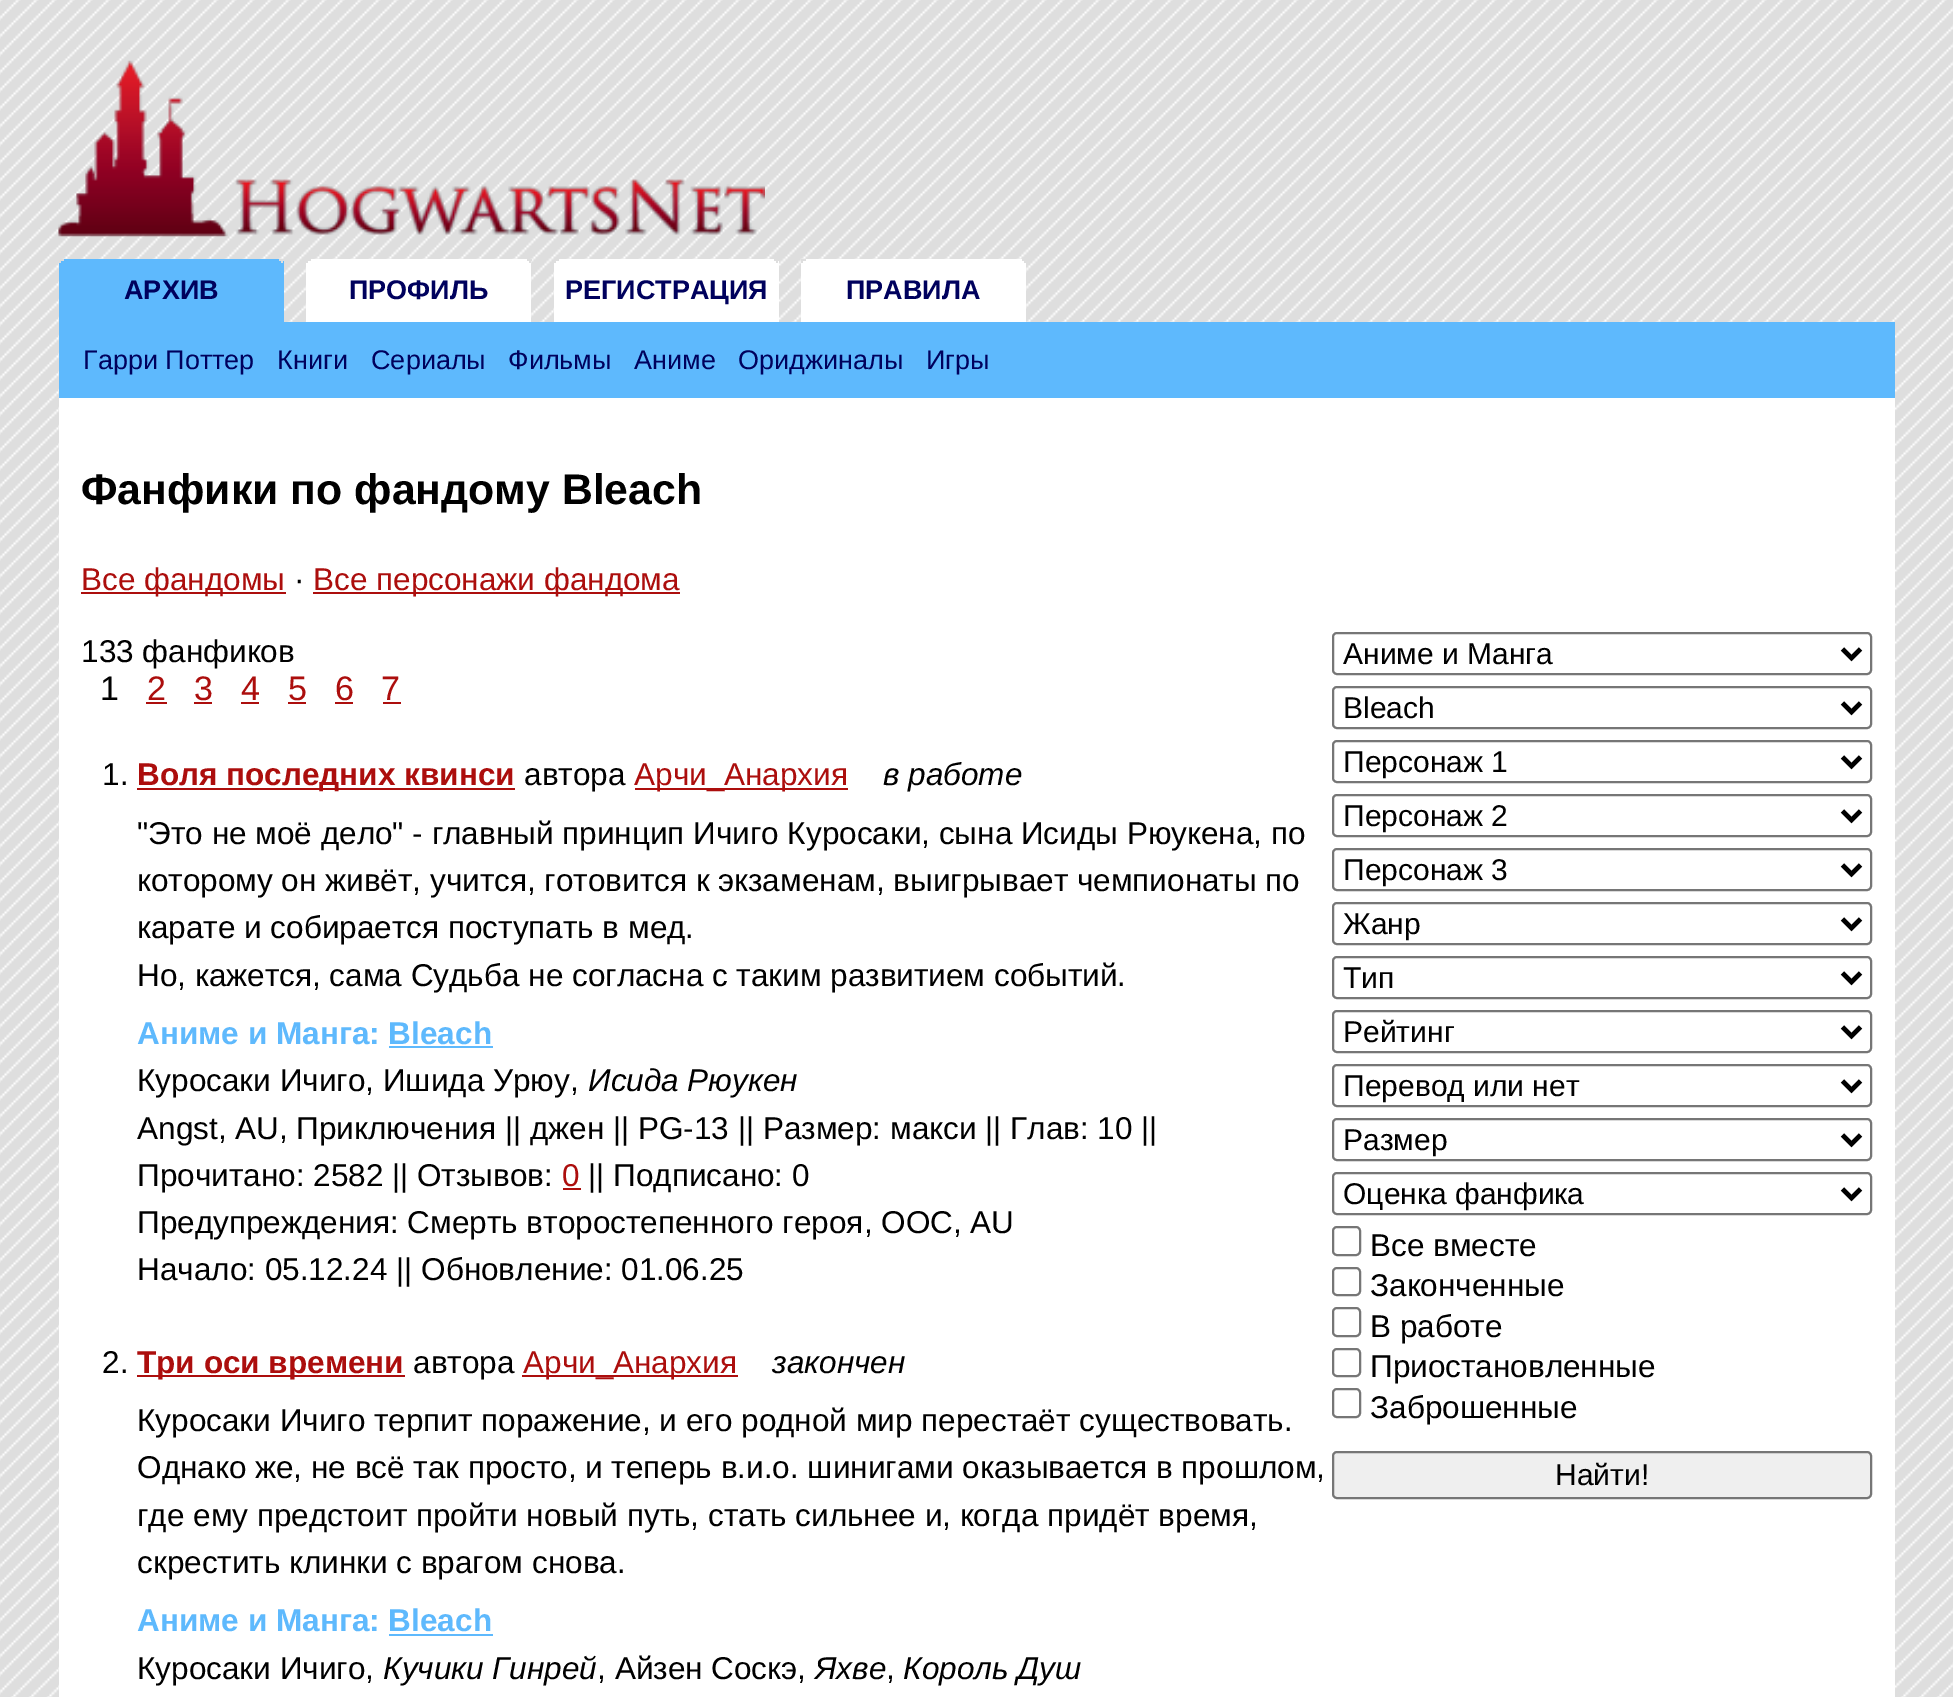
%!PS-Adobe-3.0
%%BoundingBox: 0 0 1953 1697
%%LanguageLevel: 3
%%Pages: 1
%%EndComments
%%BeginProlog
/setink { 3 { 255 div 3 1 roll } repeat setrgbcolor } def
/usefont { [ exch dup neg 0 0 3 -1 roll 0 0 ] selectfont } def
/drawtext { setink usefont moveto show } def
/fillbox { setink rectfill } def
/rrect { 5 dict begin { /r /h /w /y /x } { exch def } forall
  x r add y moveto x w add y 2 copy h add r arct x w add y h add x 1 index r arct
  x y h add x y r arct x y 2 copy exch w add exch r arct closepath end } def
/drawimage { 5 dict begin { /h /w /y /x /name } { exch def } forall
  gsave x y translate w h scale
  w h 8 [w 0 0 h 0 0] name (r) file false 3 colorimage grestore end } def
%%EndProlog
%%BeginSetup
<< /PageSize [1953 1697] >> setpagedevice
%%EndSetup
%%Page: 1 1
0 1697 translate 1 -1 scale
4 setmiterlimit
0 0 1953 1697 255 255 255 fillbox
(assets/img1.rgb) 0 0 1953 1697 drawimage
(assets/img2.rgb) 58 60 707 177 drawimage
59 259 225 63 94 185 253 fillbox
279 259 5 2 222 222 222 fillbox
59 259 5 2 222 222 222 fillbox
281 261 2 2 222 222 222 fillbox
59 261 2 2 222 222 222 fillbox
(АРХИВ) 124 299 /LiberationSans-Bold 27 0 1 93 drawtext
306 259 225 63 255 255 255 fillbox
527 259 5 2 222 222 222 fillbox
306 259 5 2 222 222 222 fillbox
529 261 2 2 222 222 222 fillbox
306 261 2 2 222 222 222 fillbox
(ПРОФИЛЬ) 349 299 /LiberationSans-Bold 27 0 1 93 drawtext
554 259 225 63 255 255 255 fillbox
774 259 5 2 222 222 222 fillbox
554 259 5 2 222 222 222 fillbox
776 261 2 2 222 222 222 fillbox
554 261 2 2 222 222 222 fillbox
(РЕГИСТРАЦИЯ) 565 299 /LiberationSans-Bold 27 0 1 93 drawtext
801 259 225 63 255 255 255 fillbox
1022 259 5 2 222 222 222 fillbox
801 259 5 2 222 222 222 fillbox
1024 261 2 2 222 222 222 fillbox
801 261 2 2 222 222 222 fillbox
(ПРАВИЛА) 846 299 /LiberationSans-Bold 27 0 1 93 drawtext
59 322 1836 76 94 185 253 fillbox
(Гарри Поттер) 83 369 /LiberationSans-Regular 27 0 1 93 drawtext
(Книги) 277 369 /LiberationSans-Regular 27 0 1 93 drawtext
(Сериалы) 371 369 /LiberationSans-Regular 27 0 1 93 drawtext
(Фильмы) 508 369 /LiberationSans-Regular 27 0 1 93 drawtext
(Аниме) 634 369 /LiberationSans-Regular 27 0 1 93 drawtext
(Ориджиналы) 738 369 /LiberationSans-Regular 27 0 1 93 drawtext
(Игры) 926 369 /LiberationSans-Regular 27 0 1 93 drawtext
59 398 1836 1299 255 255 255 fillbox
(Фанфики по фандому Bleach) 81 504 /LiberationSans-Bold 42.75 0 0 0 drawtext
81 592 205 2 172 14 13 fillbox
(Все фандомы) 81 590 /LiberationSans-Regular 31.5 172 14 13 drawtext
(·) 294 590 /LiberationSans-Regular 31.5 0 0 0 drawtext
313 592 367 2 172 14 13 fillbox
(Все персонажи фандома) 313 590 /LiberationSans-Regular 31.5 172 14 13 drawtext
(133 фанфиков) 81 662 /LiberationSans-Regular 31.5 0 0 0 drawtext
(1) 100 700 /LiberationSans-Regular 34 0 0 0 drawtext
(2) 147 700 /LiberationSans-Regular 34 172 14 13 drawtext
146 702 21 2 172 14 13 fillbox
(3) 194 700 /LiberationSans-Regular 34 172 14 13 drawtext
194 702 18 2 172 14 13 fillbox
(4) 241 700 /LiberationSans-Regular 34 172 14 13 drawtext
241 702 18 2 172 14 13 fillbox
(5) 288 700 /LiberationSans-Regular 34 172 14 13 drawtext
288 702 18 2 172 14 13 fillbox
(6) 335 700 /LiberationSans-Regular 34 172 14 13 drawtext
335 702 18 2 172 14 13 fillbox
(7) 381 700 /LiberationSans-Regular 34 172 14 13 drawtext
383 702 18 2 172 14 13 fillbox
(1.) 102 785 /LiberationSans-Regular 31.5 0 0 0 drawtext
137 788 378 2 172 14 13 fillbox
(Воля последних квинси) 137 785 /LiberationSans-Bold 31.5 172 14 13 drawtext
(автора) 524 785 /LiberationSans-Regular 31.5 0 0 0 drawtext
635 788 213 2 172 14 13 fillbox
(Арчи_Анархия) 634 785 /LiberationSans-Regular 31.5 172 14 13 drawtext
(в работе) 883 785 /LiberationSans-Italic 31.5 0 0 0 drawtext
("Это не моё дело" - главный принцип Ичиго Куросаки, сына Исиды Рюукена, по) 137 844 /LiberationSans-Regular 31.5 0 0 0 drawtext
(которому он живёт, учится, готовится к экзаменам, выигрывает чемпионаты по) 137 891 /LiberationSans-Regular 31.5 0 0 0 drawtext
(карате и собирается поступать в мед.) 137 938 /LiberationSans-Regular 31.5 0 0 0 drawtext
(Но, кажется, сама Судьба не согласна с таким развитием событий.) 137 986 /LiberationSans-Regular 31.5 0 0 0 drawtext
(Аниме и Манга: Bleach) 137 1044 /LiberationSans-Bold 31.5 94 185 253 drawtext
389 1046 104 2 94 185 253 fillbox
(Куросаки Ичиго, Ишида Урюу,) 137 1091 /LiberationSans-Regular 31.5 0 0 0 drawtext
(Исида Рюукен) 588 1091 /LiberationSans-Italic 31.5 0 0 0 drawtext
(Angst, AU, Приключения || джен || PG-13 || Размер: макси || Глав: 10 ||) 137 1139 /LiberationSans-Regular 31.5 0 0 0 drawtext
(Прочитано: 2582 || Отзывов:) 137 1186 /LiberationSans-Regular 31.5 0 0 0 drawtext
(0) 562 1186 /LiberationSans-Regular 31.5 172 14 13 drawtext
563 1188 18 2 172 14 13 fillbox
(|| Подписано: 0) 588 1186 /LiberationSans-Regular 31.5 0 0 0 drawtext
(Предупреждения: Смерть второстепенного героя, ООС, AU) 137 1233 /LiberationSans-Regular 31.5 0 0 0 drawtext
(Начало: 05.12.24 || Обновление: 01.06.25) 137 1280 /LiberationSans-Regular 31.5 0 0 0 drawtext
(2.) 102 1373 /LiberationSans-Regular 31.5 0 0 0 drawtext
137 1375 268 2 172 14 13 fillbox
(Три оси времени) 137 1373 /LiberationSans-Bold 31.5 172 14 13 drawtext
(автора) 413 1373 /LiberationSans-Regular 31.5 0 0 0 drawtext
522 1375 216 2 172 14 13 fillbox
(Арчи_Анархия) 523 1373 /LiberationSans-Regular 31.5 172 14 13 drawtext
(закончен) 772 1373 /LiberationSans-Italic 31.5 0 0 0 drawtext
(Куросаки Ичиго терпит поражение, и его родной мир перестаёт существовать.) 137 1431 /LiberationSans-Regular 31.5 0 0 0 drawtext
(Однако же, не всё так просто, и теперь в.и.о. шинигами оказывается в прошлом,) 137 1478 /LiberationSans-Regular 31.5 0 0 0 drawtext
(где ему предстоит пройти новый путь, стать сильнее и, когда придёт время,) 137 1526 /LiberationSans-Regular 31.5 0 0 0 drawtext
(скрестить клинки с врагом снова.) 137 1573 /LiberationSans-Regular 31.5 0 0 0 drawtext
(Аниме и Манга: Bleach) 137 1631 /LiberationSans-Bold 31.5 94 185 253 drawtext
389 1634 104 2 94 185 253 fillbox
(Куросаки Ичиго,) 137 1679 /LiberationSans-Regular 31.5 0 0 0 drawtext
(Кучики Гинрей) 383 1679 /LiberationSans-Italic 31.5 0 0 0 drawtext
(, Айзен Соскэ,) 597 1679 /LiberationSans-Regular 31.5 0 0 0 drawtext
(Яхве) 815 1679 /LiberationSans-Italic 31.5 0 0 0 drawtext
(,) 886 1679 /LiberationSans-Regular 31.5 0 0 0 drawtext
(Король Душ) 903 1679 /LiberationSans-Italic 31.5 0 0 0 drawtext
118 118 118 setink
2 setlinewidth
1333 633 538 41 4 rrect stroke
0 0 0 setink
4.5 setlinewidth
1842.5 649 moveto 1851.5 658 lineto 1860.5 649 lineto stroke
(Аниме и Манга) 1343 664 /LiberationSans-Regular 30 0 0 0 drawtext
118 118 118 setink
2 setlinewidth
1333 687 538 41 4 rrect stroke
0 0 0 setink
4.5 setlinewidth
1842.5 703 moveto 1851.5 712 lineto 1860.5 703 lineto stroke
(Bleach) 1343 718 /LiberationSans-Regular 30 0 0 0 drawtext
118 118 118 setink
2 setlinewidth
1333 741 538 41 4 rrect stroke
0 0 0 setink
4.5 setlinewidth
1842.5 757 moveto 1851.5 766 lineto 1860.5 757 lineto stroke
(Персонаж 1) 1343 772 /LiberationSans-Regular 30 0 0 0 drawtext
118 118 118 setink
2 setlinewidth
1333 795 538 41 4 rrect stroke
0 0 0 setink
4.5 setlinewidth
1842.5 811 moveto 1851.5 820 lineto 1860.5 811 lineto stroke
(Персонаж 2) 1343 826 /LiberationSans-Regular 30 0 0 0 drawtext
118 118 118 setink
2 setlinewidth
1333 849 538 41 4 rrect stroke
0 0 0 setink
4.5 setlinewidth
1842.5 865 moveto 1851.5 874 lineto 1860.5 865 lineto stroke
(Персонаж 3) 1343 880 /LiberationSans-Regular 30 0 0 0 drawtext
118 118 118 setink
2 setlinewidth
1333 903 538 41 4 rrect stroke
0 0 0 setink
4.5 setlinewidth
1842.5 919 moveto 1851.5 928 lineto 1860.5 919 lineto stroke
(Жанр) 1343 934 /LiberationSans-Regular 30 0 0 0 drawtext
118 118 118 setink
2 setlinewidth
1333 957 538 41 4 rrect stroke
0 0 0 setink
4.5 setlinewidth
1842.5 973 moveto 1851.5 982 lineto 1860.5 973 lineto stroke
(Тип) 1343 988 /LiberationSans-Regular 30 0 0 0 drawtext
118 118 118 setink
2 setlinewidth
1333 1011 538 41 4 rrect stroke
0 0 0 setink
4.5 setlinewidth
1842.5 1027 moveto 1851.5 1036 lineto 1860.5 1027 lineto stroke
(Рейтинг) 1343 1042 /LiberationSans-Regular 30 0 0 0 drawtext
118 118 118 setink
2 setlinewidth
1333 1065 538 41 4 rrect stroke
0 0 0 setink
4.5 setlinewidth
1842.5 1081 moveto 1851.5 1090 lineto 1860.5 1081 lineto stroke
(Перевод или нет) 1343 1096 /LiberationSans-Regular 30 0 0 0 drawtext
118 118 118 setink
2 setlinewidth
1333 1119 538 41 4 rrect stroke
0 0 0 setink
4.5 setlinewidth
1842.5 1135 moveto 1851.5 1144 lineto 1860.5 1135 lineto stroke
(Размер) 1343 1150 /LiberationSans-Regular 30 0 0 0 drawtext
118 118 118 setink
2 setlinewidth
1333 1173 538 41 4 rrect stroke
0 0 0 setink
4.5 setlinewidth
1842.5 1189 moveto 1851.5 1198 lineto 1860.5 1189 lineto stroke
(Оценка фанфика) 1343 1204 /LiberationSans-Regular 30 0 0 0 drawtext
118 118 118 setink
2 setlinewidth
1333 1227 27 28 4 rrect stroke
(Все вместе) 1370 1256 /LiberationSans-Regular 31.5 0 0 0 drawtext
118 118 118 setink
1333 1268 27 27 4 rrect stroke
(Законченные) 1370 1296 /LiberationSans-Regular 31.5 0 0 0 drawtext
118 118 118 setink
1333 1308 27 28 4 rrect stroke
(В работе) 1370 1337 /LiberationSans-Regular 31.5 0 0 0 drawtext
118 118 118 setink
1333 1349 27 27 4 rrect stroke
(Приостановленные) 1370 1377 /LiberationSans-Regular 31.5 0 0 0 drawtext
118 118 118 setink
1333 1389 27 28 4 rrect stroke
(Заброшенные) 1370 1418 /LiberationSans-Regular 31.5 0 0 0 drawtext
239 239 239 setink
1333 1452 538 46 4 rrect gsave fill grestore
118 118 118 setink
stroke
(Найти!) 1555 1485 /LiberationSans-Regular 30 0 0 0 drawtext
showpage
%%EOF
